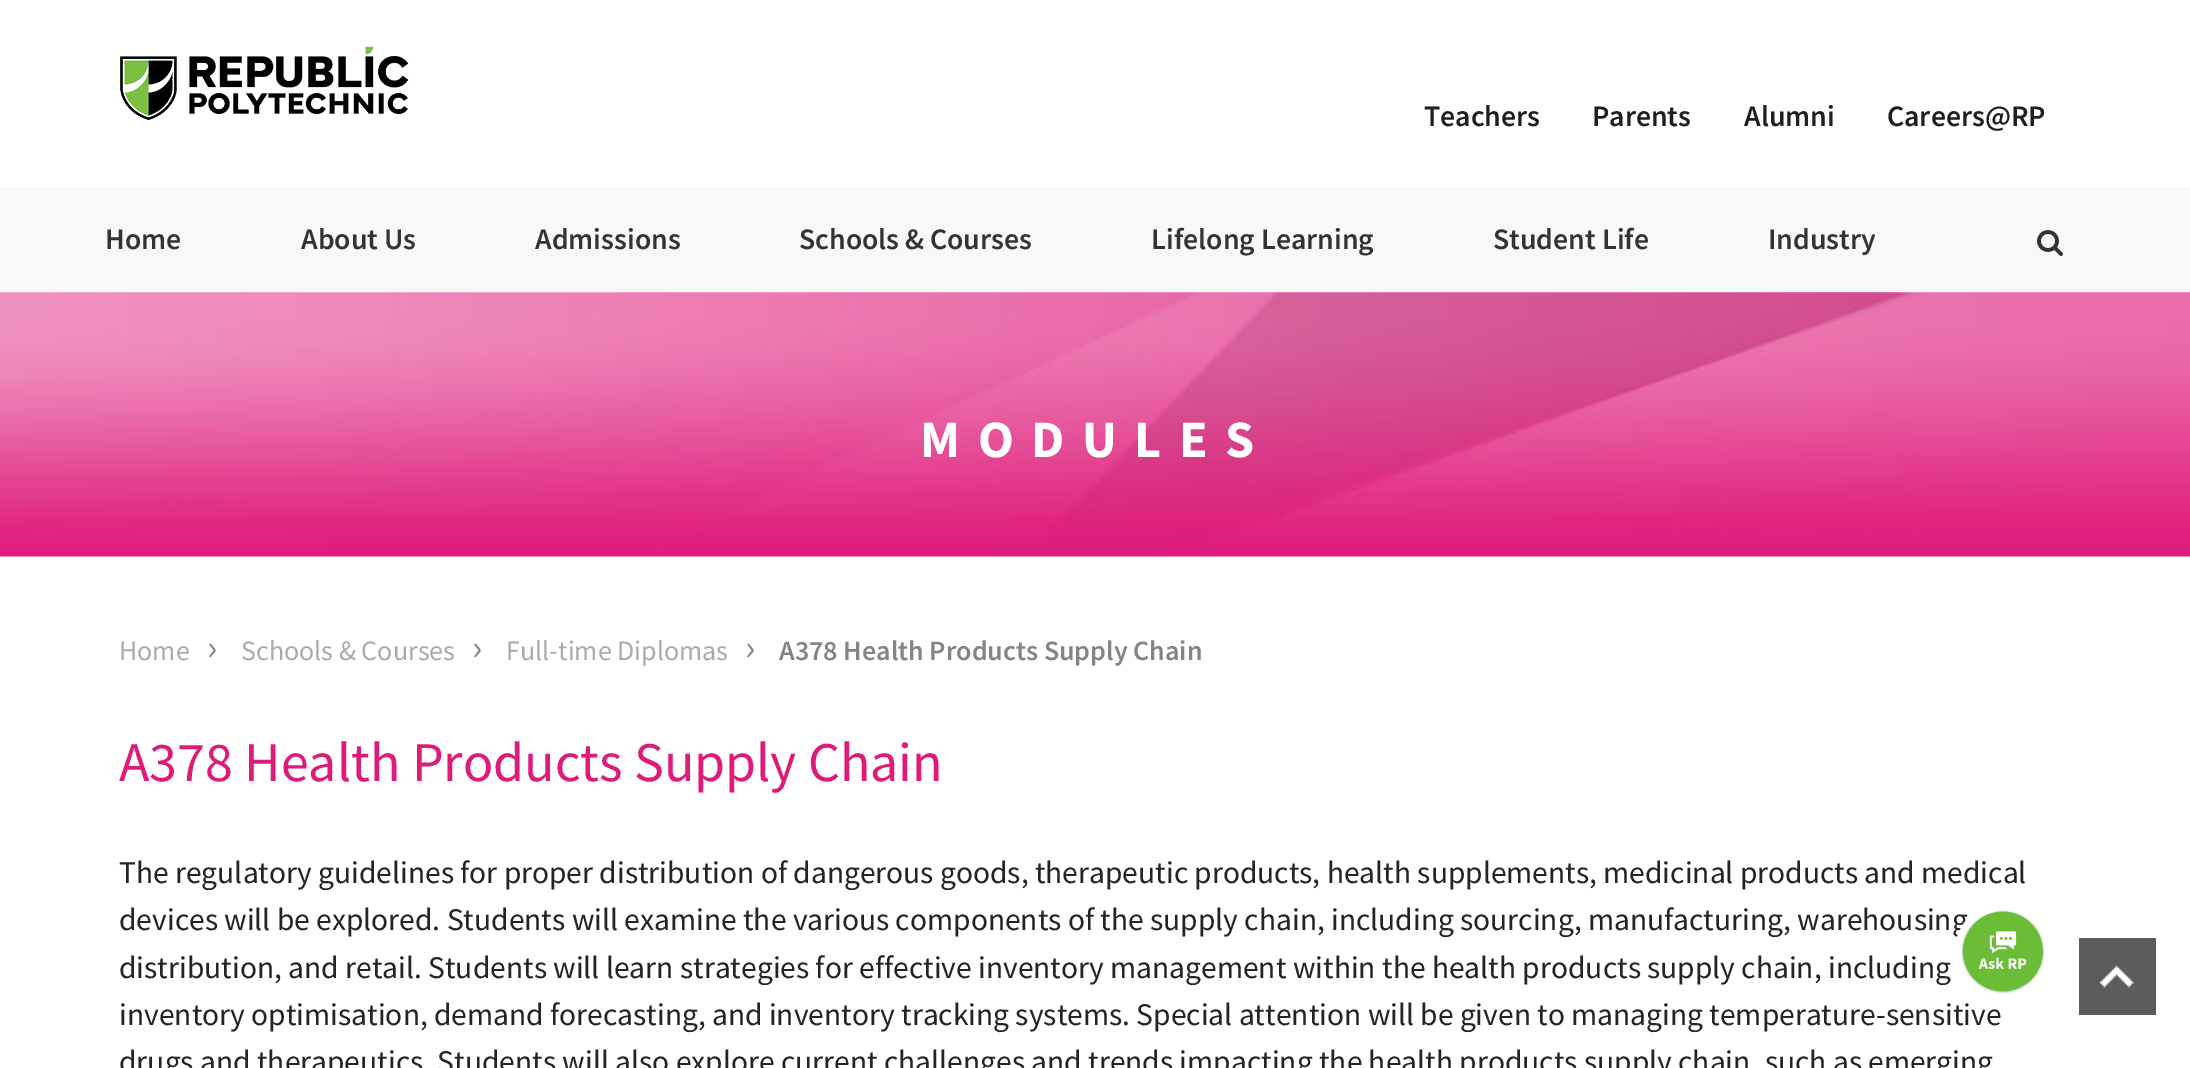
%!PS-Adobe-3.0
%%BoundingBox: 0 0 2190 1068
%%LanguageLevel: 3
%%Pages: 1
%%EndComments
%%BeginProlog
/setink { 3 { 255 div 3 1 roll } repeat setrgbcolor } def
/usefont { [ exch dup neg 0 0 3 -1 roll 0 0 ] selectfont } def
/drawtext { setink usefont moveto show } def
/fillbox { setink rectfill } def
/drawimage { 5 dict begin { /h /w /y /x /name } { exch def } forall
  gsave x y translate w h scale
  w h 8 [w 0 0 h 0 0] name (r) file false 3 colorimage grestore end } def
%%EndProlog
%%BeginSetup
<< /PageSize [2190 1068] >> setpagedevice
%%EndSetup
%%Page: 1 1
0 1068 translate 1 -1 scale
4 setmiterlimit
0 0 2190 1068 255 255 255 fillbox
(assets/img1.rgb) 120 46 289 75 drawimage
(Teachers) 1424 126 /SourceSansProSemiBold-SemiBold 29.75 33 30 31 drawtext
(Parents) 1592 126 /SourceSansProSemiBold-SemiBold 29.75 33 30 31 drawtext
(Alumni) 1744 126 /SourceSansProSemiBold-SemiBold 29.75 33 30 31 drawtext
(Careers@RP) 1887 126 /SourceSansProSemiBold-SemiBold 29.75 33 30 31 drawtext
0 187 2190 105 248 248 248 fillbox
(Home) 105 249 /SourceSansProSemiBold-SemiBold 29.75 51 51 51 drawtext
(About Us) 301 249 /SourceSansProSemiBold-SemiBold 29.75 51 51 51 drawtext
(Admissions) 535 249 /SourceSansProSemiBold-SemiBold 29.75 51 51 51 drawtext
(Schools & Courses) 799 249 /SourceSansProSemiBold-SemiBold 29.75 51 51 51 drawtext
(Lifelong Learning) 1151 249 /SourceSansProSemiBold-SemiBold 29.75 51 51 51 drawtext
(Student Life) 1493 249 /SourceSansProSemiBold-SemiBold 29.75 51 51 51 drawtext
(Industry) 1768 249 /SourceSansProSemiBold-SemiBold 29.75 51 51 51 drawtext
(assets/img2.rgb) 2037 230 26 26 drawimage
(assets/img3.rgb) 0 292 2190 265 drawimage
/SourceSansPro-Bold 52.5 usefont
255 255 255 setink
920 457 moveto 17.5 0 (MODULES) ashow
(Home) 119 660 /SourceSansPro-Regular 28 170 170 170 drawtext
(›) 207 660 /SourceSansPro-Regular 38 132 132 132 drawtext
(Schools & Courses) 241 660 /SourceSansPro-Regular 28 170 170 170 drawtext
(›) 472 660 /SourceSansPro-Regular 38 132 132 132 drawtext
(Full-time Diplomas) 506 660 /SourceSansPro-Regular 28 170 170 170 drawtext
(›) 745 660 /SourceSansPro-Regular 38 132 132 132 drawtext
(A378 Health Products Supply Chain) 779 660 /SourceSansProSemiBold-SemiBold 28 132 132 132 drawtext
(A378 Health Products Supply Chain) 119 781 /SourceSansPro-Regular 56 222 26 122 drawtext
(The regulatory guidelines for proper distribution of dangerous goods, therapeutic products, health supplements, medicinal products and medical) 119 883 /SourceSansPro-Regular 31.5 33 37 41 drawtext
(devices will be explored. Students will examine the various components of the supply chain, including sourcing, manufacturing, warehousing) 119 930 /SourceSansPro-Regular 31.5 33 37 41 drawtext
(distribution, and retail. Students will learn strategies for effective inventory management within the health products supply chain, including) 119 978 /SourceSansPro-Regular 31.5 33 37 41 drawtext
(inventory optimisation, demand forecasting, and inventory tracking systems. Special attention will be given to managing temperature-sensitive) 119 1025 /SourceSansPro-Regular 31.5 33 37 41 drawtext
(drugs and therapeutics. Students will also explore current challenges and trends impacting the health products supply chain, such as emerging) 119 1072 /SourceSansPro-Regular 31.5 33 37 41 drawtext
(assets/img4.rgb) 1956 910 89 84 drawimage
2079 938 77 77 93 91 92 fillbox
(assets/img5.rgb) 2100 965 34 23 drawimage
showpage
%%EOF
